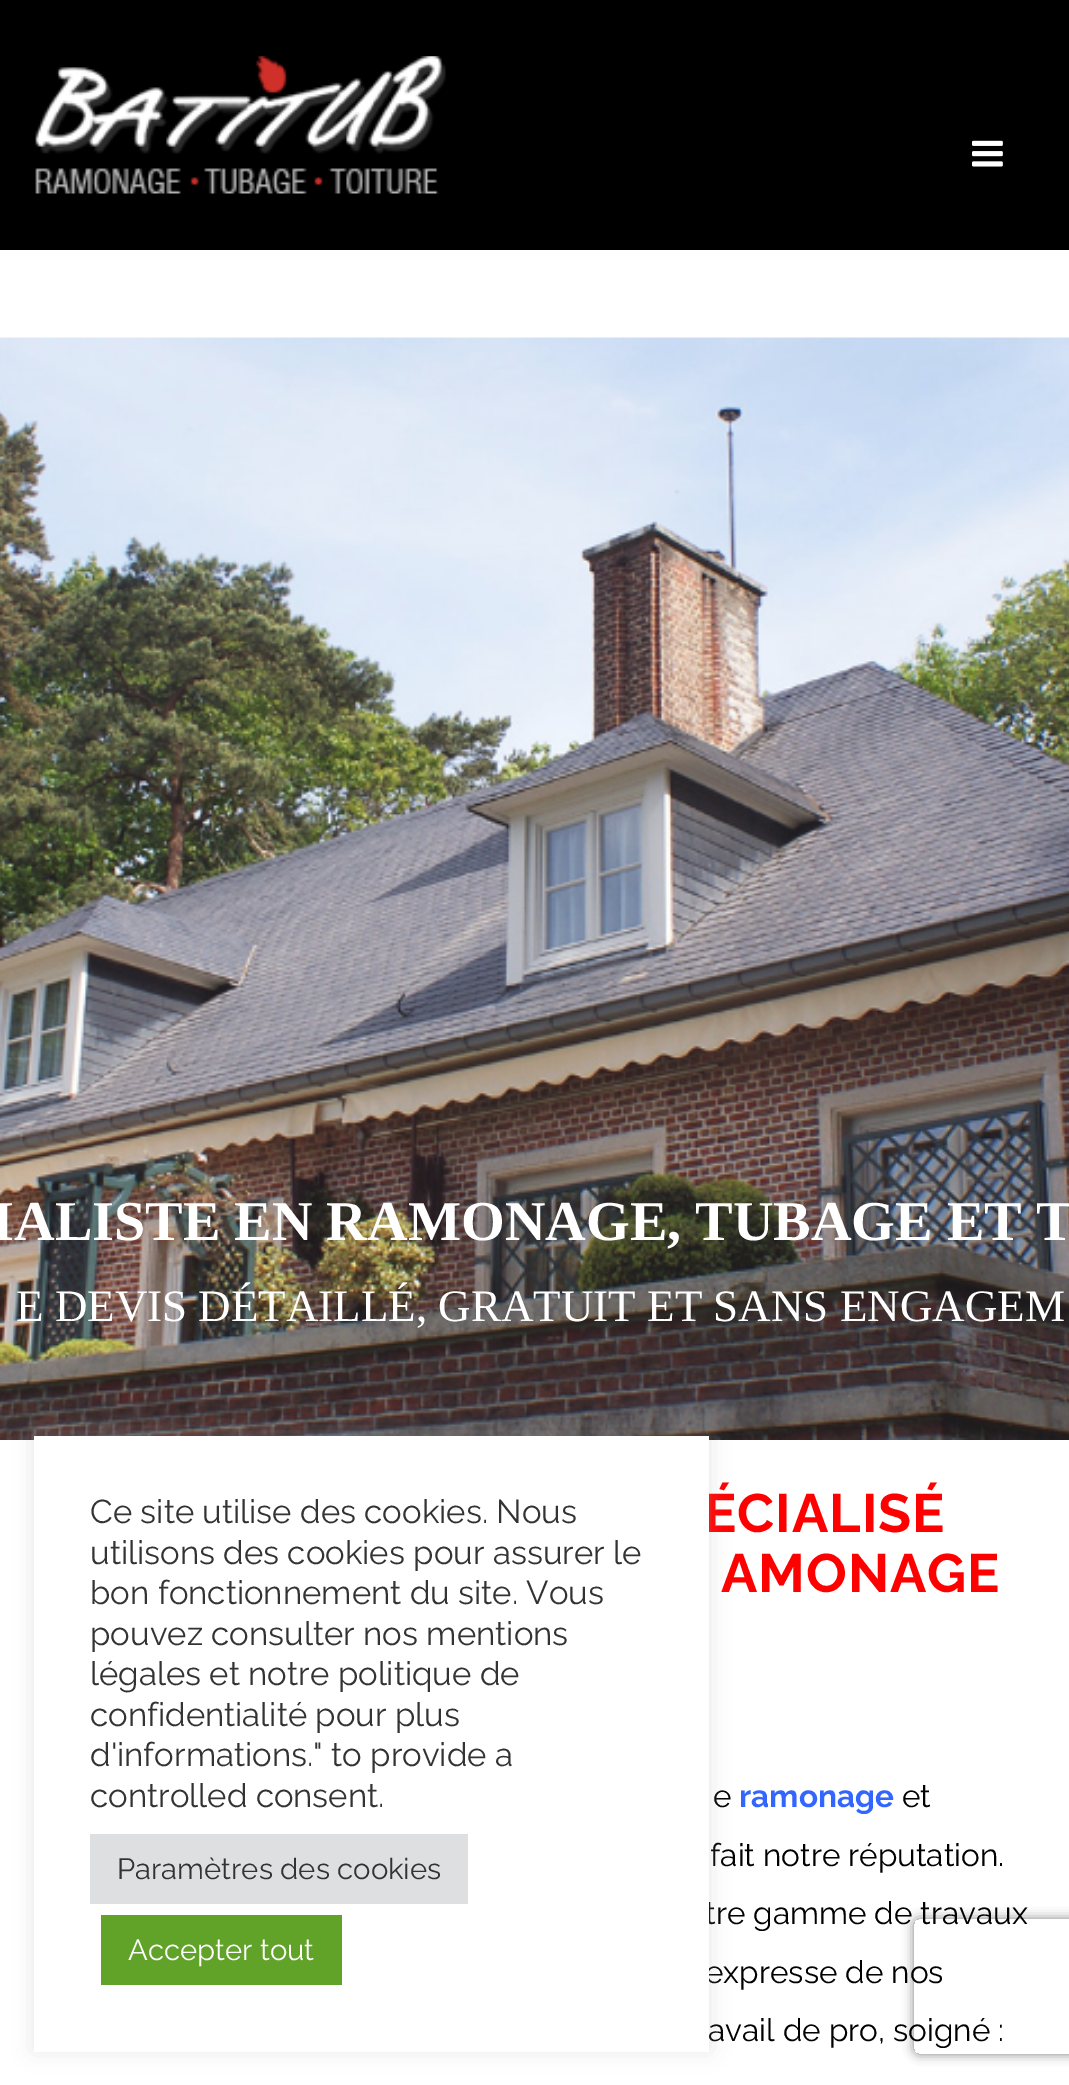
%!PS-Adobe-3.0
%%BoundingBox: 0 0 1069 2085
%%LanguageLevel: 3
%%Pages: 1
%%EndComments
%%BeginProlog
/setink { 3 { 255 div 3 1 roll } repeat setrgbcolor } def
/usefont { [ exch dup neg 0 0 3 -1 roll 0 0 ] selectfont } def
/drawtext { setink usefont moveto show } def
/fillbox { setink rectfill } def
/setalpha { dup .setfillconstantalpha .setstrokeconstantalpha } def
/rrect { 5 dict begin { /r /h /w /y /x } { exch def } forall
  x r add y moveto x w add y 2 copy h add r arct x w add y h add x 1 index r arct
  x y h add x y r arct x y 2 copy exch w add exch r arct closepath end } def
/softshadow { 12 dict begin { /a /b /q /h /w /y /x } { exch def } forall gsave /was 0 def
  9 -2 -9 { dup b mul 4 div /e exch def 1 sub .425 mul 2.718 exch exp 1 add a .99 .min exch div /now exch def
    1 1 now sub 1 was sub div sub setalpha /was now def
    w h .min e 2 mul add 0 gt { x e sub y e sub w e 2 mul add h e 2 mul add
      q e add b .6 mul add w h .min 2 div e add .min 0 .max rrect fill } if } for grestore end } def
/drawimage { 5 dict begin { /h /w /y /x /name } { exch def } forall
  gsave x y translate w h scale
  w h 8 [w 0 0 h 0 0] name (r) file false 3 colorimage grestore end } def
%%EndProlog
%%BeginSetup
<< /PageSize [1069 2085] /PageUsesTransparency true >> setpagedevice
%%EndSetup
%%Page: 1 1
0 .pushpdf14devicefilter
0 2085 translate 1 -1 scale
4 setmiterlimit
0 0 1069 2085 255 255 255 fillbox
0 0 1069 250 0 0 0 fillbox
(assets/img1.rgb) 35 56 411 138 drawimage
(assets/img2.rgb) 972 140 31 27 drawimage
(assets/img3.rgb) 0 337 1069 1103 drawimage
(IALISTE EN RAMONAGE, TUBAGE ET T) -8 1240 /LiberationSerif-Bold 56.25 255 255 255 drawtext
(E DEVIS DÉTAILLÉ, GRATUIT ET SANS ENGAGEM) 16 1321 /LiberationSerif-Regular 45 255 255 255 drawtext
/Raleway-Bold 54 usefont
255 0 0 setink
704 1532 moveto 1 0 (ÉCIALISÉ) ashow
721 1592 moveto 1 0 (AMONAGE) ashow
(e) 713 1807 /Raleway-Regular 31.5 0 0 0 drawtext
(ramonage) 739 1807 /Raleway-Bold 31.5 51 102 255 drawtext
(et) 902 1807 /Raleway-Regular 31.5 0 0 0 drawtext
(fait notre réputation.) 710 1866 /Raleway-Regular 31.5 0 0 0 drawtext
gsave
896 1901 moveto 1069 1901 lineto 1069 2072 lineto 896 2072 lineto closepath 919 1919 moveto 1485 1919 lineto 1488 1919 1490 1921 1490 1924 curveto 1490 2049 lineto 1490 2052 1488 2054 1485 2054 curveto 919 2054 lineto 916 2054 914 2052 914 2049 curveto 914 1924 lineto 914 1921 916 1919 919 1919 curveto closepath eoclip newpath
128 128 128 setink
914 1919 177 135 5 5.5 1 softshadow
grestore
(tre gamme de travaux) 705 1924 /Raleway-Regular 31.5 0 0 0 drawtext
(expresse de nos) 705 1983 /Raleway-Regular 31.5 0 0 0 drawtext
(avail de pro, soigné :) 708 2041 /Raleway-Regular 31.5 0 0 0 drawtext
172 171 171 setink
34 1433 675 617 0 11 0.3 softshadow
34 1436 675 616 255 255 255 fillbox
(Ce site utilise des cookies. Nous) 90 1523 /Raleway-Regular 33 51 51 51 drawtext
(utilisons des cookies pour assurer le) 90 1564 /Raleway-Regular 33 51 51 51 drawtext
(bon fonctionnement du site. Vous) 90 1604 /Raleway-Regular 33 51 51 51 drawtext
(pouvez consulter nos mentions) 90 1645 /Raleway-Regular 33 51 51 51 drawtext
(légales et notre politique de) 90 1685 /Raleway-Regular 33 51 51 51 drawtext
(confidentialité pour plus) 90 1726 /Raleway-Regular 33 51 51 51 drawtext
(d'informations." to provide a) 90 1766 /Raleway-Regular 33 51 51 51 drawtext
(controlled consent.) 90 1807 /Raleway-Regular 33 51 51 51 drawtext
90 1834 378 70 222 223 224 fillbox
(Paramètres des cookies) 117 1879 /Raleway-Regular 29.25 51 51 51 drawtext
101 1915 241 70 97 162 41 fillbox
(Accepter tout) 128 1960 /Raleway-Regular 29.25 255 255 255 drawtext
.poppdf14devicefilter showpage
%%EOF
